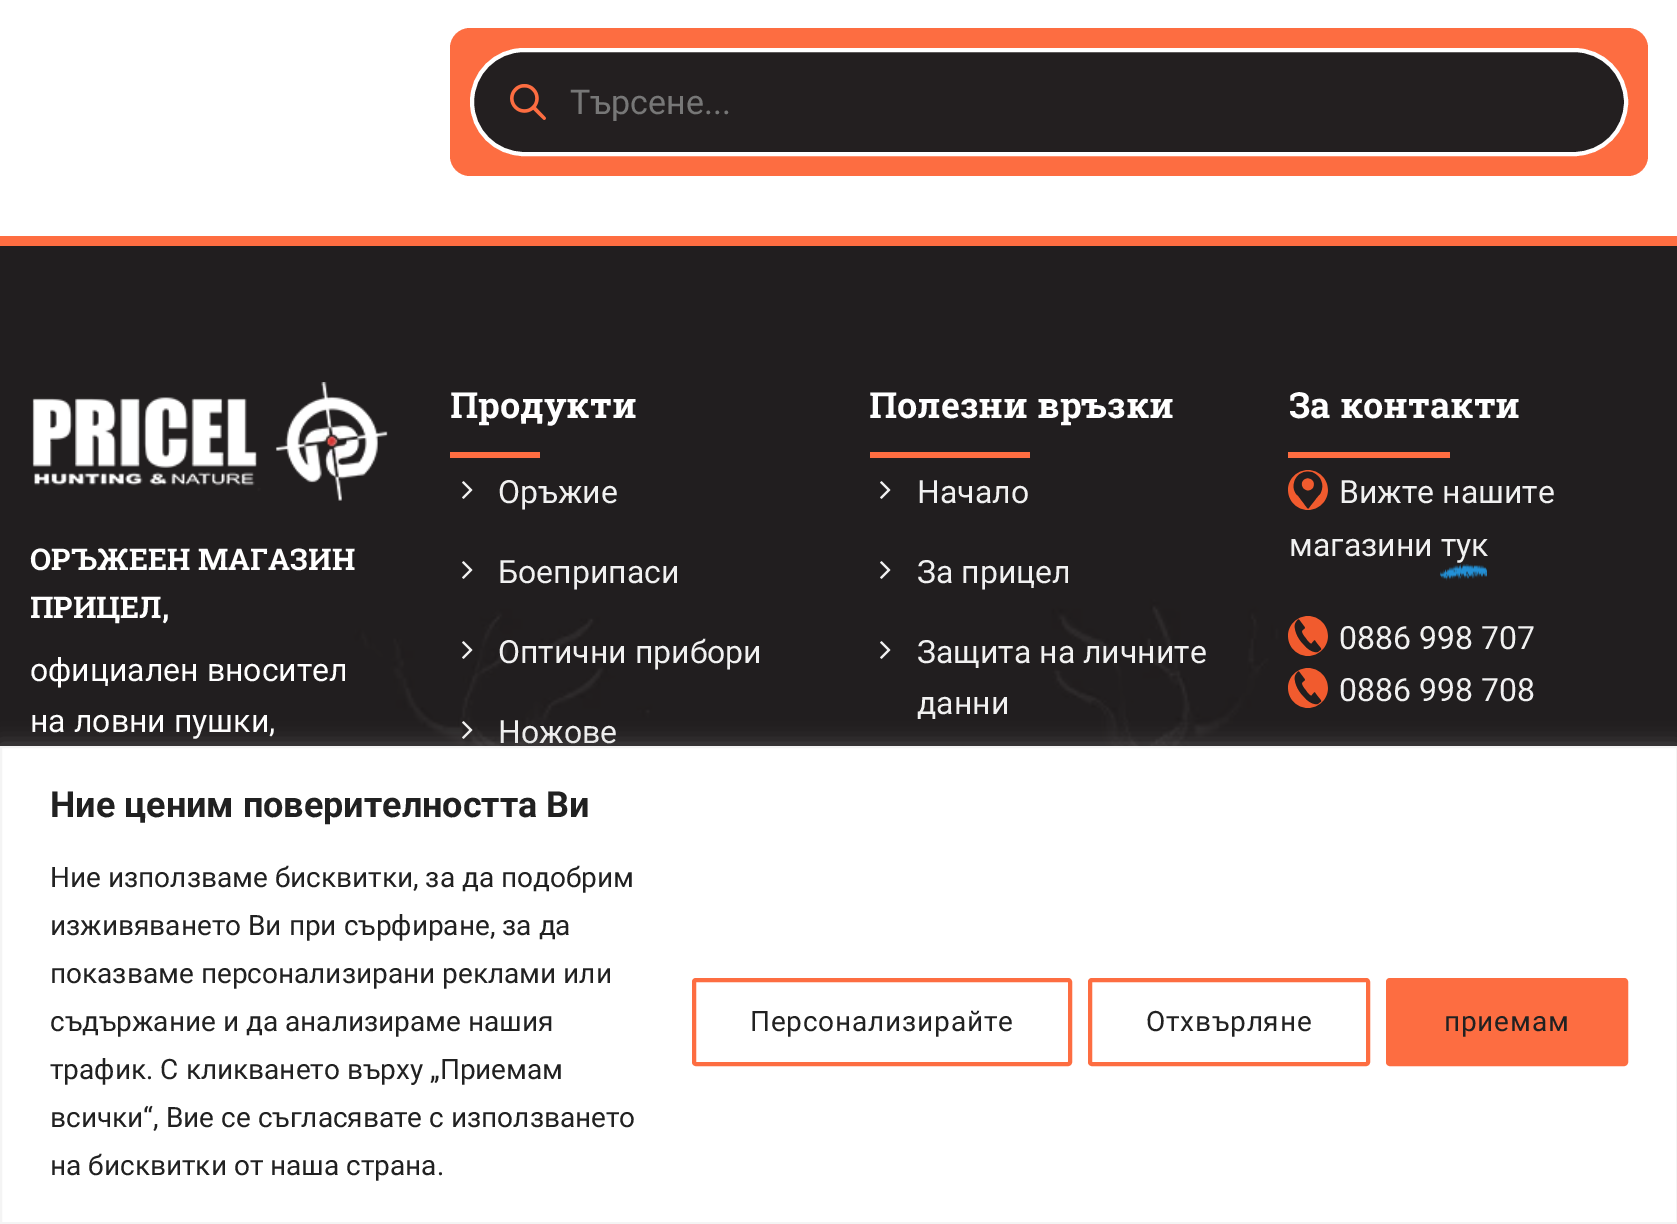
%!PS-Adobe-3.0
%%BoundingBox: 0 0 1677 1224
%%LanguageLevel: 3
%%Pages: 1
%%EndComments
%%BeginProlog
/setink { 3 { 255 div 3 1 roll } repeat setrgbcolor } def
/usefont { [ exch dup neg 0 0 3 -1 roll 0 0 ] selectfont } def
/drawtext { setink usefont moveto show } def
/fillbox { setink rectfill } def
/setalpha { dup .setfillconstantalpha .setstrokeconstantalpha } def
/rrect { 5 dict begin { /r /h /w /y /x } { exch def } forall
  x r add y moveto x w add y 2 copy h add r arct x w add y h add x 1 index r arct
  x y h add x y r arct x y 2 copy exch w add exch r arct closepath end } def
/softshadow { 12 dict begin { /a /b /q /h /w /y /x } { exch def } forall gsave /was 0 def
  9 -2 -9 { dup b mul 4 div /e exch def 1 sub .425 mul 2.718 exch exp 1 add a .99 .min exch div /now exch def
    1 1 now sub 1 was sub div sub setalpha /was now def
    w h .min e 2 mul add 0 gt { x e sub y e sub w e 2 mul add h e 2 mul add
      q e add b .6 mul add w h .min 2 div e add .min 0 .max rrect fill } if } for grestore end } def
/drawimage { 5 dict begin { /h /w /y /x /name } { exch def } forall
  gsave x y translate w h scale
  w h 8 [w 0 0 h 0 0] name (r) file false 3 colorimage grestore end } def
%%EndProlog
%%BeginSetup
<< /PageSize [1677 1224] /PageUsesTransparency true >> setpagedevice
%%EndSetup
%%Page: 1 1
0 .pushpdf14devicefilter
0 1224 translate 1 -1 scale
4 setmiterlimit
0 0 1677 1224 255 255 255 fillbox
253 109 65 setink
450 28 1198 148 20 rrect fill
35 31 32 setink
472 50 1154 104 52 rrect gsave fill grestore
255 255 255 setink
4 setlinewidth
stroke
(assets/img1.rgb) 510 84 36 36 drawimage
(Търсене...) 570 114 /Roboto-Regular 34 119 119 119 drawtext
0 236 1677 10 254 109 65 fillbox
(assets/img2.rgb) 0 246 1677 500 drawimage
(assets/img3.rgb) 32 382 356 119 drawimage
(ОРЪЖЕЕН МАГАЗИН) 30 570 /RobotoSlab-Bold 30 255 255 255 drawtext
(ПРИЦЕЛ,) 30 618 /RobotoSlab-Bold 30 255 255 255 drawtext
(официален вносител) 30 681 /Roboto-Regular 32 255 255 255 drawtext
(на ловни пушки,) 30 732 /Roboto-Regular 32 255 255 255 drawtext
(Продукти) 450 418 /RobotoSlab-Bold 36 255 255 255 drawtext
450 452 90 6 254 109 65 fillbox
(assets/img4.rgb) 462 481 11 18 drawimage
(Оръжие) 498 503 /Roboto-Regular 32 241 241 241 drawtext
(assets/img4.rgb) 462 561 11 18 drawimage
(Боеприпаси) 498 583 /Roboto-Regular 32 241 241 241 drawtext
(assets/img4.rgb) 462 641 11 18 drawimage
(Оптични прибори) 498 663 /Roboto-Regular 32 241 241 241 drawtext
(assets/img5.rgb) 462 721 11 18 drawimage
(Ножове) 498 743 /Roboto-Regular 32 241 241 241 drawtext
(Полезни връзки) 869 418 /RobotoSlab-Bold 36 255 255 255 drawtext
870 452 160 6 254 109 65 fillbox
(assets/img4.rgb) 880 481 11 18 drawimage
(Начало) 917 503 /Roboto-Regular 32 241 241 241 drawtext
(assets/img4.rgb) 880 561 11 18 drawimage
(За прицел) 917 583 /Roboto-Regular 32 241 241 241 drawtext
(assets/img4.rgb) 880 641 11 18 drawimage
(Защита на личните) 917 663 /Roboto-Regular 32 241 241 241 drawtext
(данни) 917 714 /Roboto-Regular 32 241 241 241 drawtext
(За контакти) 1289 418 /RobotoSlab-Bold 36 255 255 255 drawtext
1288 452 162 6 254 109 65 fillbox
(assets/img6.rgb) 1288 470 40 40 drawimage
(Вижте нашите) 1339 503 /Roboto-Regular 32 241 241 241 drawtext
(магазини тук) 1289 556 /Roboto-Regular 32 241 241 241 drawtext
(assets/img7.rgb) 1440 564 47 17 drawimage
(assets/img8.rgb) 1288 616 40 40 drawimage
(0886 998 707) 1339 649 /Roboto-Regular 32 241 241 241 drawtext
(assets/img9.rgb) 1288 668 40 40 drawimage
(0886 998 708) 1339 701 /Roboto-Regular 32 241 241 241 drawtext
172 171 171 setink
0 744 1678 478 0 10 0.3 softshadow
255 255 255 setink
1 747 moveto 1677 747 lineto 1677 1223 lineto 1 1223 lineto closepath gsave fill grestore
244 244 244 setink
2 setlinewidth
stroke
(Ние ценим поверителността Ви) 50 817 /Roboto-Bold 36 33 33 33 drawtext
(Ние използваме бисквитки, за да подобрим) 50 887 /Roboto-Regular 28 33 33 33 drawtext
(изживяването Ви при сърфиране, за да) 50 935 /Roboto-Regular 28 33 33 33 drawtext
(показваме персонализирани реклами или) 50 983 /Roboto-Regular 28 33 33 33 drawtext
(съдържание и да анализираме нашия) 50 1031 /Roboto-Regular 28 33 33 33 drawtext
(трафик. С кликването върху „Приемам) 50 1079 /Roboto-Regular 28 33 33 33 drawtext
(всички“, Вие се съгласявате с използването) 50 1127 /Roboto-Regular 28 33 33 33 drawtext
(на бисквитки от наша страна.) 50 1175 /Roboto-Regular 28 33 33 33 drawtext
253 109 65 setink
4 setlinewidth
694 980 376 84 2 rrect stroke
33 33 33 setink
750 1031 moveto 0.8 0 (Персонализирайте) ashow
253 109 65 setink
1090 980 278 84 2 rrect stroke
33 33 33 setink
1146 1031 moveto 0.8 0 (Отхвърляне) ashow
253 109 65 setink
1388 980 238 84 2 rrect gsave fill grestore
stroke
33 33 33 setink
1444 1031 moveto 0.8 0 (приемам) ashow
.poppdf14devicefilter showpage
%%EOF
